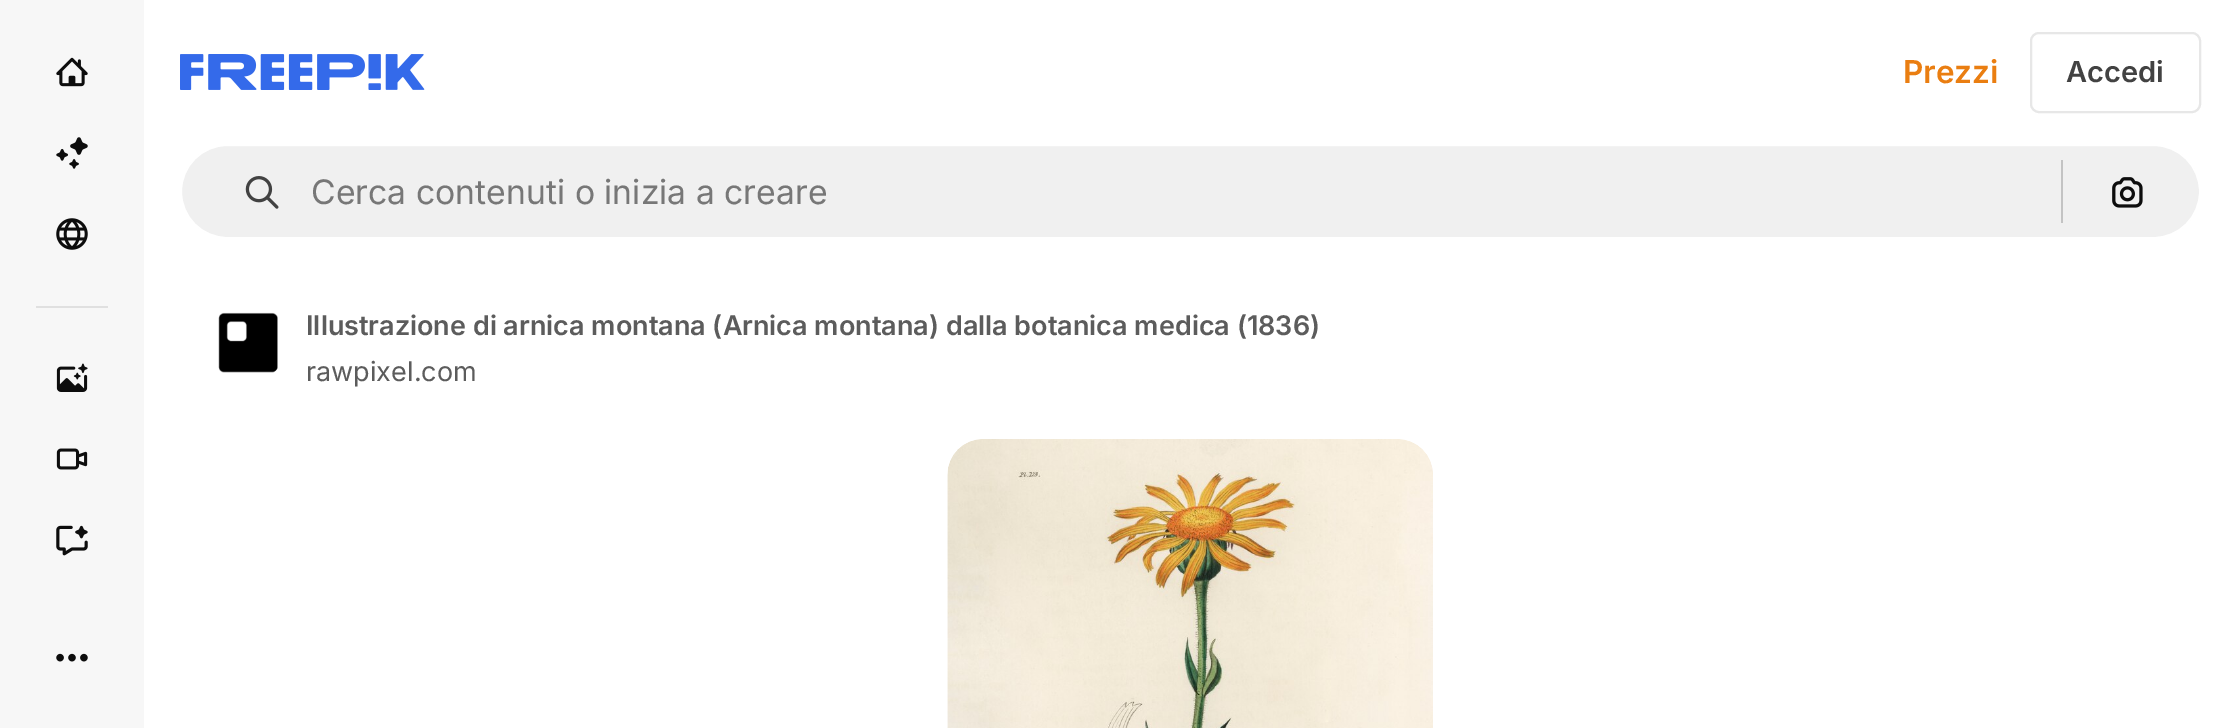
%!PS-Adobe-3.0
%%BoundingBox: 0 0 2236 728
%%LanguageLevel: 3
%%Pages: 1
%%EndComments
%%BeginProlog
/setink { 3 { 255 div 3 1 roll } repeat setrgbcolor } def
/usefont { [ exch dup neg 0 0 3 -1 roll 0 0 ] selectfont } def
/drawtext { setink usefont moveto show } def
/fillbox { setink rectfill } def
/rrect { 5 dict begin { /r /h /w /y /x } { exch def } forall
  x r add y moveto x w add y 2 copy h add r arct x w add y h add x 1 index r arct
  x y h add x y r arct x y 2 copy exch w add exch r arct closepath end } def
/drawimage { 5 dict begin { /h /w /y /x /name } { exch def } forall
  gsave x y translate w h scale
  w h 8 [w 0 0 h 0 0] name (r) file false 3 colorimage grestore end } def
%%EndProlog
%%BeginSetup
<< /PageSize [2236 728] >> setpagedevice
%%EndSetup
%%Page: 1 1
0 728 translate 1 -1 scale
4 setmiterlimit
0 0 2236 728 255 255 255 fillbox
0 0 144 728 247 247 247 fillbox
(assets/img1.rgb) 56 57 32 30 drawimage
(assets/img2.rgb) 56 137 32 32 drawimage
(assets/img3.rgb) 56 218 32 32 drawimage
36 306 72 2 224 224 224 fillbox
(assets/img4.rgb) 56 363 32 29 drawimage
(assets/img5.rgb) 56 448 32 22 drawimage
(assets/img6.rgb) 56 525 32 31 drawimage
(assets/img7.rgb) 56 653 32 9 drawimage
(assets/img8.rgb) 180 54 245 36 drawimage
(Prezzi) 1903 83 /Inter-SemiBold 31.5 234 126 17 drawtext
231 231 231 setink
2 setlinewidth
2031 33 169 79 8 rrect stroke
(Accedi) 2066 82 /Inter-SemiBold 29 66 66 66 drawtext
240 240 240 setink
181 145 2019 93 46.5 rrect gsave fill grestore
255 255 255 setink
stroke
(assets/img9.rgb) 245 176 34 33 drawimage
(Cerca contenuti o inizia a creare) 311 204 /Inter-Regular 33.75 119 119 119 drawtext
2061 160 2 63 195 195 195 fillbox
(assets/img10.rgb) 2112 177 31 31 drawimage
(assets/img11.rgb) 218 312 60 61 drawimage
(Illustrazione di arnica montana \(Arnica montana\) dalla botanica medica \(1836\)) 306 335 /Inter-SemiBold 27 92 92 92 drawtext
(rawpixel.com) 306 381 /Inter-Regular 27 92 92 92 drawtext
(assets/img12.rgb) 947 439 486 289 drawimage
showpage
%%EOF
